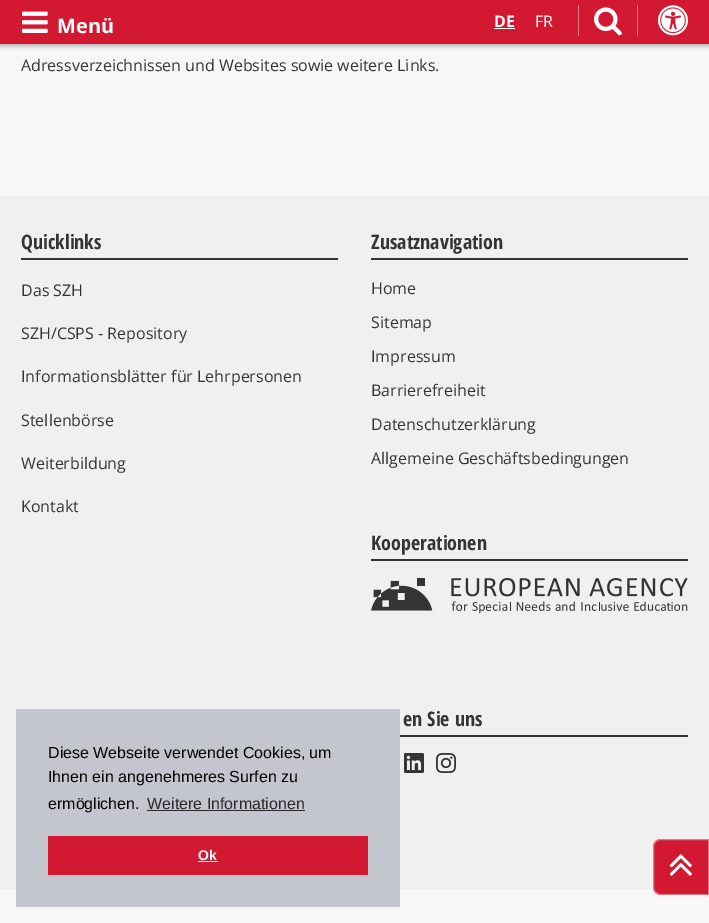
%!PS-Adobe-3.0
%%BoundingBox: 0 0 709 923
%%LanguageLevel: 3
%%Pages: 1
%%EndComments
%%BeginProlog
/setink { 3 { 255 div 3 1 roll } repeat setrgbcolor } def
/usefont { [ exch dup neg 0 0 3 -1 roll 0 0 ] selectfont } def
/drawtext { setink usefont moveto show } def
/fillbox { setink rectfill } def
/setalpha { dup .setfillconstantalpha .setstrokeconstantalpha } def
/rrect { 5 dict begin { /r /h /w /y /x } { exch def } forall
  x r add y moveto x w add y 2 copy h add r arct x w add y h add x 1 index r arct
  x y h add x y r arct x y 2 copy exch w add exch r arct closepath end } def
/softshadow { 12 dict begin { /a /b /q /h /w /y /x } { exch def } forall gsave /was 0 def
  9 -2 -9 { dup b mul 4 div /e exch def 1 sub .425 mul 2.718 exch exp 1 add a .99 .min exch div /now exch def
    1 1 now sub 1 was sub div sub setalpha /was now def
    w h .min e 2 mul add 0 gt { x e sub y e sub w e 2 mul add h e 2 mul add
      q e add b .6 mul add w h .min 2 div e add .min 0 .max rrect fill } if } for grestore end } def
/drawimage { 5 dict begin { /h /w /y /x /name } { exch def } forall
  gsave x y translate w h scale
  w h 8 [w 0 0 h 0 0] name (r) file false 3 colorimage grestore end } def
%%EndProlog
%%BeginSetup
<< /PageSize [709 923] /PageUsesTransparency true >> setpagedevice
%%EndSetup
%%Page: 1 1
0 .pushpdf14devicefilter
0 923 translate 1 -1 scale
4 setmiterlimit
0 0 709 923 247 247 247 fillbox
0 0 0 setink
0 2 709 44 0 2.5 0.3 softshadow
0 0 709 44 211 25 50 fillbox
(assets/img1.rgb) 22 11 26 22 drawimage
(Menü) 57 33 /OpenSans-Bold 20 255 255 255 drawtext
(DE) 494 27 /OpenSans-Bold 16 255 255 255 drawtext
494 28 21 1 255 255 255 fillbox
(FR) 535 27 /OpenSans-Regular 16 255 255 255 drawtext
578 5 1 31 229 117 132 fillbox
(assets/img2.rgb) 594 7 28 29 drawimage
637 5 1 31 229 117 132 fillbox
(assets/img3.rgb) 658 5 30 31 drawimage
(Adressverzeichnissen und Websites sowie weitere Links.) 21 71 /OpenSans-Regular 16 52 52 52 drawtext
0 196 709 693 240 240 240 fillbox
21 258 317 2 52 52 52 fillbox
(Quicklinks) 21 249 /OpenSansCondensed-Bold 20 52 52 52 drawtext
(Das SZH) 21 296 /OpenSans-Regular 16 52 52 52 drawtext
(SZH/CSPS - Repository) 21 339 /OpenSans-Regular 16 52 52 52 drawtext
(Informationsblätter für Lehrpersonen) 21 382 /OpenSans-Regular 16 52 52 52 drawtext
(Stellenbörse) 21 426 /OpenSans-Regular 16 52 52 52 drawtext
(Weiterbildung) 21 469 /OpenSans-Regular 16 52 52 52 drawtext
(Kontakt) 21 512 /OpenSans-Regular 16 52 52 52 drawtext
371 258 317 2 52 52 52 fillbox
(Zusatznavigation) 371 249 /OpenSansCondensed-Bold 20 52 52 52 drawtext
(Home) 371 294 /OpenSans-Regular 16 52 52 52 drawtext
(Sitemap) 371 328 /OpenSans-Regular 16 52 52 52 drawtext
(Impressum) 371 362 /OpenSans-Regular 16 52 52 52 drawtext
(Barrierefreiheit) 371 396 /OpenSans-Regular 16 52 52 52 drawtext
(Datenschutzerklärung) 371 430 /OpenSans-Regular 16 52 52 52 drawtext
(Allgemeine Geschäftsbedingungen) 371 464 /OpenSans-Regular 16 52 52 52 drawtext
371 559 317 2 52 52 52 fillbox
(Kooperationen) 371 550 /OpenSansCondensed-Bold 20 52 52 52 drawtext
(assets/img4.rgb) 371 578 317 36 drawimage
400 735 288 2 52 52 52 fillbox
(en Sie uns) 403 726 /OpenSansCondensed-Bold 20 52 52 52 drawtext
(assets/img5.rgb) 404 753 20 20 drawimage
(assets/img6.rgb) 436 753 20 20 drawimage
211 25 50 setink
661 839 moveto 709 839 lineto 709 895 lineto 661 895 lineto 656.5 895 653 891.5 653 887 curveto 653 847 lineto 653 842.5 656.5 839 661 839 curveto closepath fill
0.4 setalpha
255 255 255 setink
661 839.5 moveto 708.5 839.5 lineto 708.5 894.5 lineto 661 894.5 lineto 657 894.5 653.5 891 653.5 887 curveto 653.5 847 lineto 653.5 843 657 839.5 661 839.5 curveto closepath stroke
1 setalpha
(assets/img7.rgb) 669 854 23 22 drawimage
16 709 384 198 195 198 206 fillbox
(Diese Webseite verwendet Cookies, um) 48 758 /LiberationSans-Regular 16 0 0 0 drawtext
(Ihnen ein angenehmeres Surfen zu) 48 782 /LiberationSans-Regular 16 0 0 0 drawtext
(ermöglichen.) 48 809 /LiberationSans-Regular 16 0 0 0 drawtext
(Weitere Informationen) 147 809 /LiberationSans-Regular 16 39 40 41 drawtext
147 810 158 1 39 40 41 fillbox
48 836 320 39 211 25 50 fillbox
(Ok) 198 860 /LiberationSans-Bold 14 255 255 255 drawtext
198 861 20 1 255 255 255 fillbox
.poppdf14devicefilter showpage
%%EOF
